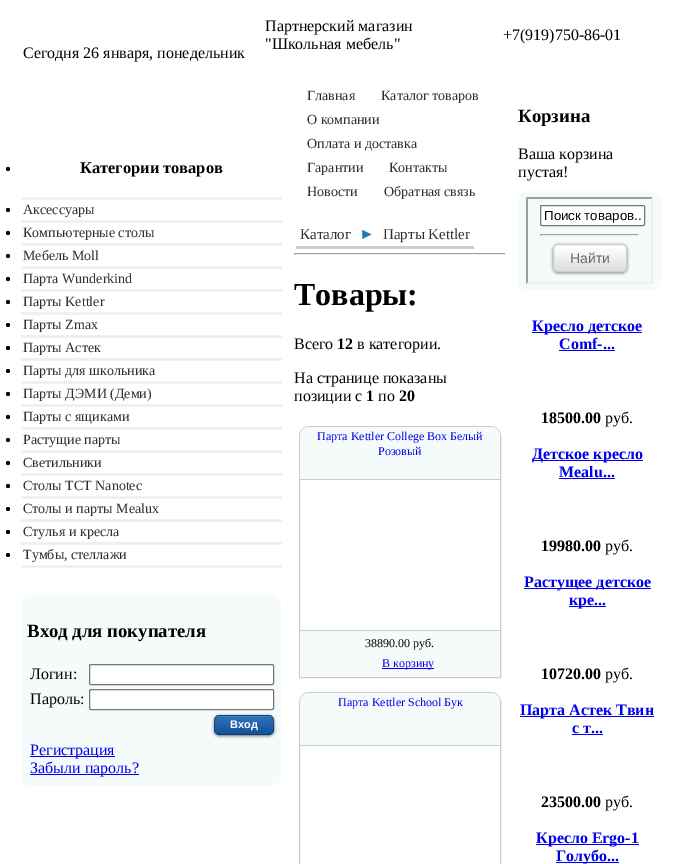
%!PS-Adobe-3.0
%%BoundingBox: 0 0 677 864
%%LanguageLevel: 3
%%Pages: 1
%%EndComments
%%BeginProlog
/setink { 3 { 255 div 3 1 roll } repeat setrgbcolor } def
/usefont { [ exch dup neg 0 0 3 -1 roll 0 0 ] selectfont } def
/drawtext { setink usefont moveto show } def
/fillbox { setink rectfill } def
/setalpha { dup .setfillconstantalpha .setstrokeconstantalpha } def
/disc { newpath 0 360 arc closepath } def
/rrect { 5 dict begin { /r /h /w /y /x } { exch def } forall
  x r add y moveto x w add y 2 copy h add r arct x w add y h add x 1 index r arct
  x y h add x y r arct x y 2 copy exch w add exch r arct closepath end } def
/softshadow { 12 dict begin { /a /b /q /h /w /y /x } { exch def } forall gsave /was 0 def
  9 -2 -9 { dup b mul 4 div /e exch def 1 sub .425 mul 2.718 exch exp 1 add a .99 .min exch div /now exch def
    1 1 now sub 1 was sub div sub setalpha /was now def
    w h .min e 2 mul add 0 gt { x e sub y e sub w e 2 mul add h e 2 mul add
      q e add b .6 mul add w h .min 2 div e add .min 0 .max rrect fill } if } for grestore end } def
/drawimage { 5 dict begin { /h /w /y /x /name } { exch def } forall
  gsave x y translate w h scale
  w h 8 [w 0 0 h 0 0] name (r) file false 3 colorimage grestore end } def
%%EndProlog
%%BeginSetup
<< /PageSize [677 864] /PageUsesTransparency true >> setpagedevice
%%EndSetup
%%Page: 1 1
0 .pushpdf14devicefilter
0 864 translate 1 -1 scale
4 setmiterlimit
0 0 677 864 255 255 255 fillbox
(Партнерский магазин) 265 31 /LiberationSerif-Regular 16 0 0 0 drawtext
("Школьная мебель") 265 49 /LiberationSerif-Regular 16 0 0 0 drawtext
(+7\(919\)750-86-01) 503 40 /LiberationSerif-Regular 16 0 0 0 drawtext
(Сегодня 26 января, понедельник) 23 58 /LiberationSerif-Regular 16 0 0 0 drawtext
21 197 261 3 240 240 240 fillbox
0 0 0 setink
8 169 2 disc fill
(Категории товаров) 80 173 /LiberationSerif-Bold 16.4 0 0 0 drawtext
21 220 261 3 240 240 240 fillbox
0 0 0 setink
8 210 2 disc fill
(Аксессуары) 23 214 /LiberationSerif-Regular 14 46 46 46 drawtext
21 243 261 3 240 240 240 fillbox
0 0 0 setink
8 233 2 disc fill
(Компьютерные столы) 23 237 /LiberationSerif-Regular 14 46 46 46 drawtext
21 266 261 3 240 240 240 fillbox
0 0 0 setink
8 256 2 disc fill
(Мебель Moll) 23 260 /LiberationSerif-Regular 14 46 46 46 drawtext
21 289 261 3 240 240 240 fillbox
0 0 0 setink
8 279 2 disc fill
(Парта Wunderkind) 23 283 /LiberationSerif-Regular 14 46 46 46 drawtext
21 312 261 3 240 240 240 fillbox
0 0 0 setink
8 302 2 disc fill
(Парты Kettler) 23 306 /LiberationSerif-Regular 14 46 46 46 drawtext
21 335 261 3 240 240 240 fillbox
0 0 0 setink
8 325 2 disc fill
(Парты Zmax) 23 329 /LiberationSerif-Regular 14 46 46 46 drawtext
21 358 261 3 240 240 240 fillbox
0 0 0 setink
8 348 2 disc fill
(Парты Астек) 23 352 /LiberationSerif-Regular 14 46 46 46 drawtext
21 381 261 3 240 240 240 fillbox
0 0 0 setink
8 371 2 disc fill
(Парты для школьника) 23 375 /LiberationSerif-Regular 14 46 46 46 drawtext
21 404 261 3 240 240 240 fillbox
0 0 0 setink
8 394 2 disc fill
(Парты ДЭМИ \(Деми\)) 23 398 /LiberationSerif-Regular 14 46 46 46 drawtext
21 427 261 3 240 240 240 fillbox
0 0 0 setink
8 417 2 disc fill
(Парты с ящиками) 23 421 /LiberationSerif-Regular 14 46 46 46 drawtext
21 450 261 3 240 240 240 fillbox
0 0 0 setink
8 440 2 disc fill
(Растущие парты) 23 444 /LiberationSerif-Regular 14 46 46 46 drawtext
21 473 261 3 240 240 240 fillbox
0 0 0 setink
8 463 2 disc fill
(Светильники) 23 467 /LiberationSerif-Regular 14 46 46 46 drawtext
21 496 261 3 240 240 240 fillbox
0 0 0 setink
8 486 2 disc fill
(Столы TCT Nanotec) 23 490 /LiberationSerif-Regular 14 46 46 46 drawtext
21 519 261 3 240 240 240 fillbox
0 0 0 setink
8 509 2 disc fill
(Столы и парты Mealux) 23 513 /LiberationSerif-Regular 14 46 46 46 drawtext
21 542 261 3 240 240 240 fillbox
0 0 0 setink
8 532 2 disc fill
(Стулья и кресла) 23 536 /LiberationSerif-Regular 14 46 46 46 drawtext
21 565 261 3 240 240 240 fillbox
0 0 0 setink
8 555 2 disc fill
(Тумбы, стеллажи) 23 559 /LiberationSerif-Regular 14 46 46 46 drawtext
245 250 250 setink
21 595 260 191 10 rrect fill
(Вход для покупателя) 27 637 /LiberationSerif-Bold 18.75 0 0 0 drawtext
(Логин:) 30 679 /LiberationSerif-Regular 16 0 0 0 drawtext
255 255 255 setink
89.5 664.5 184 20 1.5 rrect gsave fill grestore
118 118 118 setink
stroke
(Пароль:) 30 704 /LiberationSerif-Regular 16 0 0 0 drawtext
255 255 255 setink
89.5 689.5 184 20 1.5 rrect gsave fill grestore
118 118 118 setink
stroke
0 0 0 setink
214 716 60 20 5 1.5 0.5 softshadow
14 89 174 setink
214 715 60 20 5 rrect fill
(assets/img1.rgb) 214 716 60 19 drawimage
0.25 setalpha
0 0 0 setink
214.5 715.5 59 19 4.5 rrect stroke
1 setalpha
(Вход) 230 728 /LiberationSans-Bold 11 255 255 255 drawtext
30 756 85 1 0 0 238 fillbox
(Регистрация) 30 755 /LiberationSerif-Regular 16 0 0 238 drawtext
30 774 109 1 0 0 238 fillbox
(Забыли пароль?) 30 773 /LiberationSerif-Regular 16 0 0 238 drawtext
(Главная) 307 100 /LiberationSerif-Regular 14 46 46 46 drawtext
(Каталог товаров) 381 100 /LiberationSerif-Regular 14 46 46 46 drawtext
(О компании) 307 124 /LiberationSerif-Regular 14 46 46 46 drawtext
(Оплата и доставка) 307 148 /LiberationSerif-Regular 14 46 46 46 drawtext
(Гарантии) 307 172 /LiberationSerif-Regular 14 46 46 46 drawtext
(Контакты) 389 172 /LiberationSerif-Regular 14 46 46 46 drawtext
(Новости) 307 196 /LiberationSerif-Regular 14 46 46 46 drawtext
(Обратная связь) 384 196 /LiberationSerif-Regular 14 46 46 46 drawtext
(Каталог) 300 239 /LiberationSerif-Regular 15 46 46 46 drawtext
296 246 178 3 204 204 204 fillbox
(►) 359 239 /LiberationSerif-Regular 16 32 121 181 drawtext
(Парты Kettler) 383 239 /LiberationSerif-Regular 15 46 46 46 drawtext
294 253 212 1 159 159 159 fillbox
505 253 1 2 238 238 238 fillbox
294 254 212 1 238 238 238 fillbox
294 253 1 2 159 159 159 fillbox
(Товары:) 294 305 /LiberationSerif-Bold 32 0 0 0 drawtext
(Всего) 294 349 /LiberationSerif-Regular 16 0 0 0 drawtext
(12) 337 349 /LiberationSerif-Bold 16 0 0 0 drawtext
(в категории.) 357 349 /LiberationSerif-Regular 16 0 0 0 drawtext
(На странице показаны) 294 383 /LiberationSerif-Regular 16 0 0 0 drawtext
(позиции с) 294 401 /LiberationSerif-Regular 16 0 0 0 drawtext
(1) 366 401 /LiberationSerif-Bold 16 0 0 0 drawtext
(по) 378 401 /LiberationSerif-Regular 16 0 0 0 drawtext
(20) 399 401 /LiberationSerif-Bold 16 0 0 0 drawtext
204 204 204 setink
309 426.5 moveto 491 426.5 lineto 496 426.5 500.5 431 500.5 436 curveto 500.5 677.5 lineto 299.5 677.5 lineto 299.5 436 lineto 299.5 431 304 426.5 309 426.5 curveto closepath stroke
245 250 250 setink
309 427 moveto 491 427 lineto 496 427 500 431 500 436 curveto 500 480 lineto 300 480 lineto 300 436 lineto 300 431 304 427 309 427 curveto closepath fill
300 479 200 1 204 204 204 fillbox
(Парта Kettler College Box Белый) 317 440 /LiberationSerif-Regular 12 0 0 238 drawtext
(Розовый) 378 455 /LiberationSerif-Regular 12 0 0 238 drawtext
300 631 200 46 245 250 250 fillbox
300 630 200 1 204 204 204 fillbox
(38890.00 руб.) 365 647 /LiberationSerif-Regular 12 0 0 0 drawtext
382 668 52 1 0 0 238 fillbox
(В корзину) 382 667 /LiberationSerif-Regular 12 0 0 238 drawtext
204 204 204 setink
309 692.5 moveto 491 692.5 lineto 496 692.5 500.5 697 500.5 702 curveto 500.5 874.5 lineto 299.5 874.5 lineto 299.5 702 lineto 299.5 697 304 692.5 309 692.5 curveto closepath stroke
245 250 250 setink
309 693 moveto 491 693 lineto 496 693 500 697 500 702 curveto 500 746 lineto 300 746 lineto 300 702 lineto 300 697 304 693 309 693 curveto closepath fill
300 745 200 1 204 204 204 fillbox
(Парта Kettler School Бук) 338 706 /LiberationSerif-Regular 12 0 0 238 drawtext
(Корзина) 518 122 /LiberationSerif-Bold 18.75 0 0 0 drawtext
(Ваша корзина) 518 159 /LiberationSerif-Regular 16 0 0 0 drawtext
(пустая!) 518 177 /LiberationSerif-Regular 16 0 0 0 drawtext
245 250 250 setink
518 191 143 99 10 rrect fill
159 159 159 setink
526 197 moveto 653 197 lineto 651 199 lineto 528 199 lineto closepath fill
239 239 239 setink
653 197 moveto 653 284 lineto 651 282 lineto 651 199 lineto closepath fill
653 284 moveto 526 284 lineto 528 282 lineto 651 282 lineto closepath fill
159 159 159 setink
526 284 moveto 526 197 lineto 528 199 lineto 528 282 lineto closepath fill
255 255 255 setink
540.5 205.5 104 20 1.5 rrect gsave fill grestore
118 118 118 setink
stroke
(Поиск товаров..) 544 220 /LiberationSans-Regular 13.25 0 0 0 drawtext
540 234 99 1 159 159 159 fillbox
638 234 1 2 238 238 238 fillbox
540 235 99 1 238 238 238 fillbox
540 234 1 2 159 159 159 fillbox
0 0 0 setink
553 245 74 28 5 1.5 0.5 softshadow
255 255 255 setink
553 244 74 28 5 rrect fill
(assets/img2.rgb) 553 248 74 24 drawimage
204 204 204 setink
553.5 244.5 73 27 4.5 rrect stroke
(Найти) 570 263 /LiberationSans-Regular 14 102 102 102 drawtext
532 332 110 1 0 0 238 fillbox
(Кресло детское) 532 331 /LiberationSerif-Bold 16 0 0 238 drawtext
(Comf-...) 559 349 /LiberationSerif-Bold 16 0 0 238 drawtext
559 350 56 1 0 0 238 fillbox
(18500.00) 541 423 /LiberationSerif-Bold 16 0 0 0 drawtext
(руб.) 605 423 /LiberationSerif-Regular 16 0 0 0 drawtext
532 460 111 1 0 0 238 fillbox
(Детское кресло) 532 459 /LiberationSerif-Bold 16 0 0 238 drawtext
(Mealu...) 559 477 /LiberationSerif-Bold 16 0 0 238 drawtext
559 478 56 1 0 0 238 fillbox
(19980.00) 541 551 /LiberationSerif-Bold 16 0 0 0 drawtext
(руб.) 605 551 /LiberationSerif-Regular 16 0 0 0 drawtext
524 588 127 1 0 0 238 fillbox
(Растущее детское) 524 587 /LiberationSerif-Bold 16 0 0 238 drawtext
569 606 37 1 0 0 238 fillbox
(кре...) 569 605 /LiberationSerif-Bold 16 0 0 238 drawtext
(10720.00) 541 679 /LiberationSerif-Bold 16 0 0 0 drawtext
(руб.) 605 679 /LiberationSerif-Regular 16 0 0 0 drawtext
520 716 134 1 0 0 238 fillbox
(Парта Астек Твин) 520 715 /LiberationSerif-Bold 16 0 0 238 drawtext
(с т...) 572 733 /LiberationSerif-Bold 16 0 0 238 drawtext
572 734 31 1 0 0 238 fillbox
(23500.00) 541 807 /LiberationSerif-Bold 16 0 0 0 drawtext
(руб.) 605 807 /LiberationSerif-Regular 16 0 0 0 drawtext
536 844 103 1 0 0 238 fillbox
(Кресло Ergo-1) 536 843 /LiberationSerif-Bold 16 0 0 238 drawtext
556 862 63 1 0 0 238 fillbox
(Голубо...) 556 861 /LiberationSerif-Bold 16 0 0 238 drawtext
.poppdf14devicefilter showpage
%%EOF
